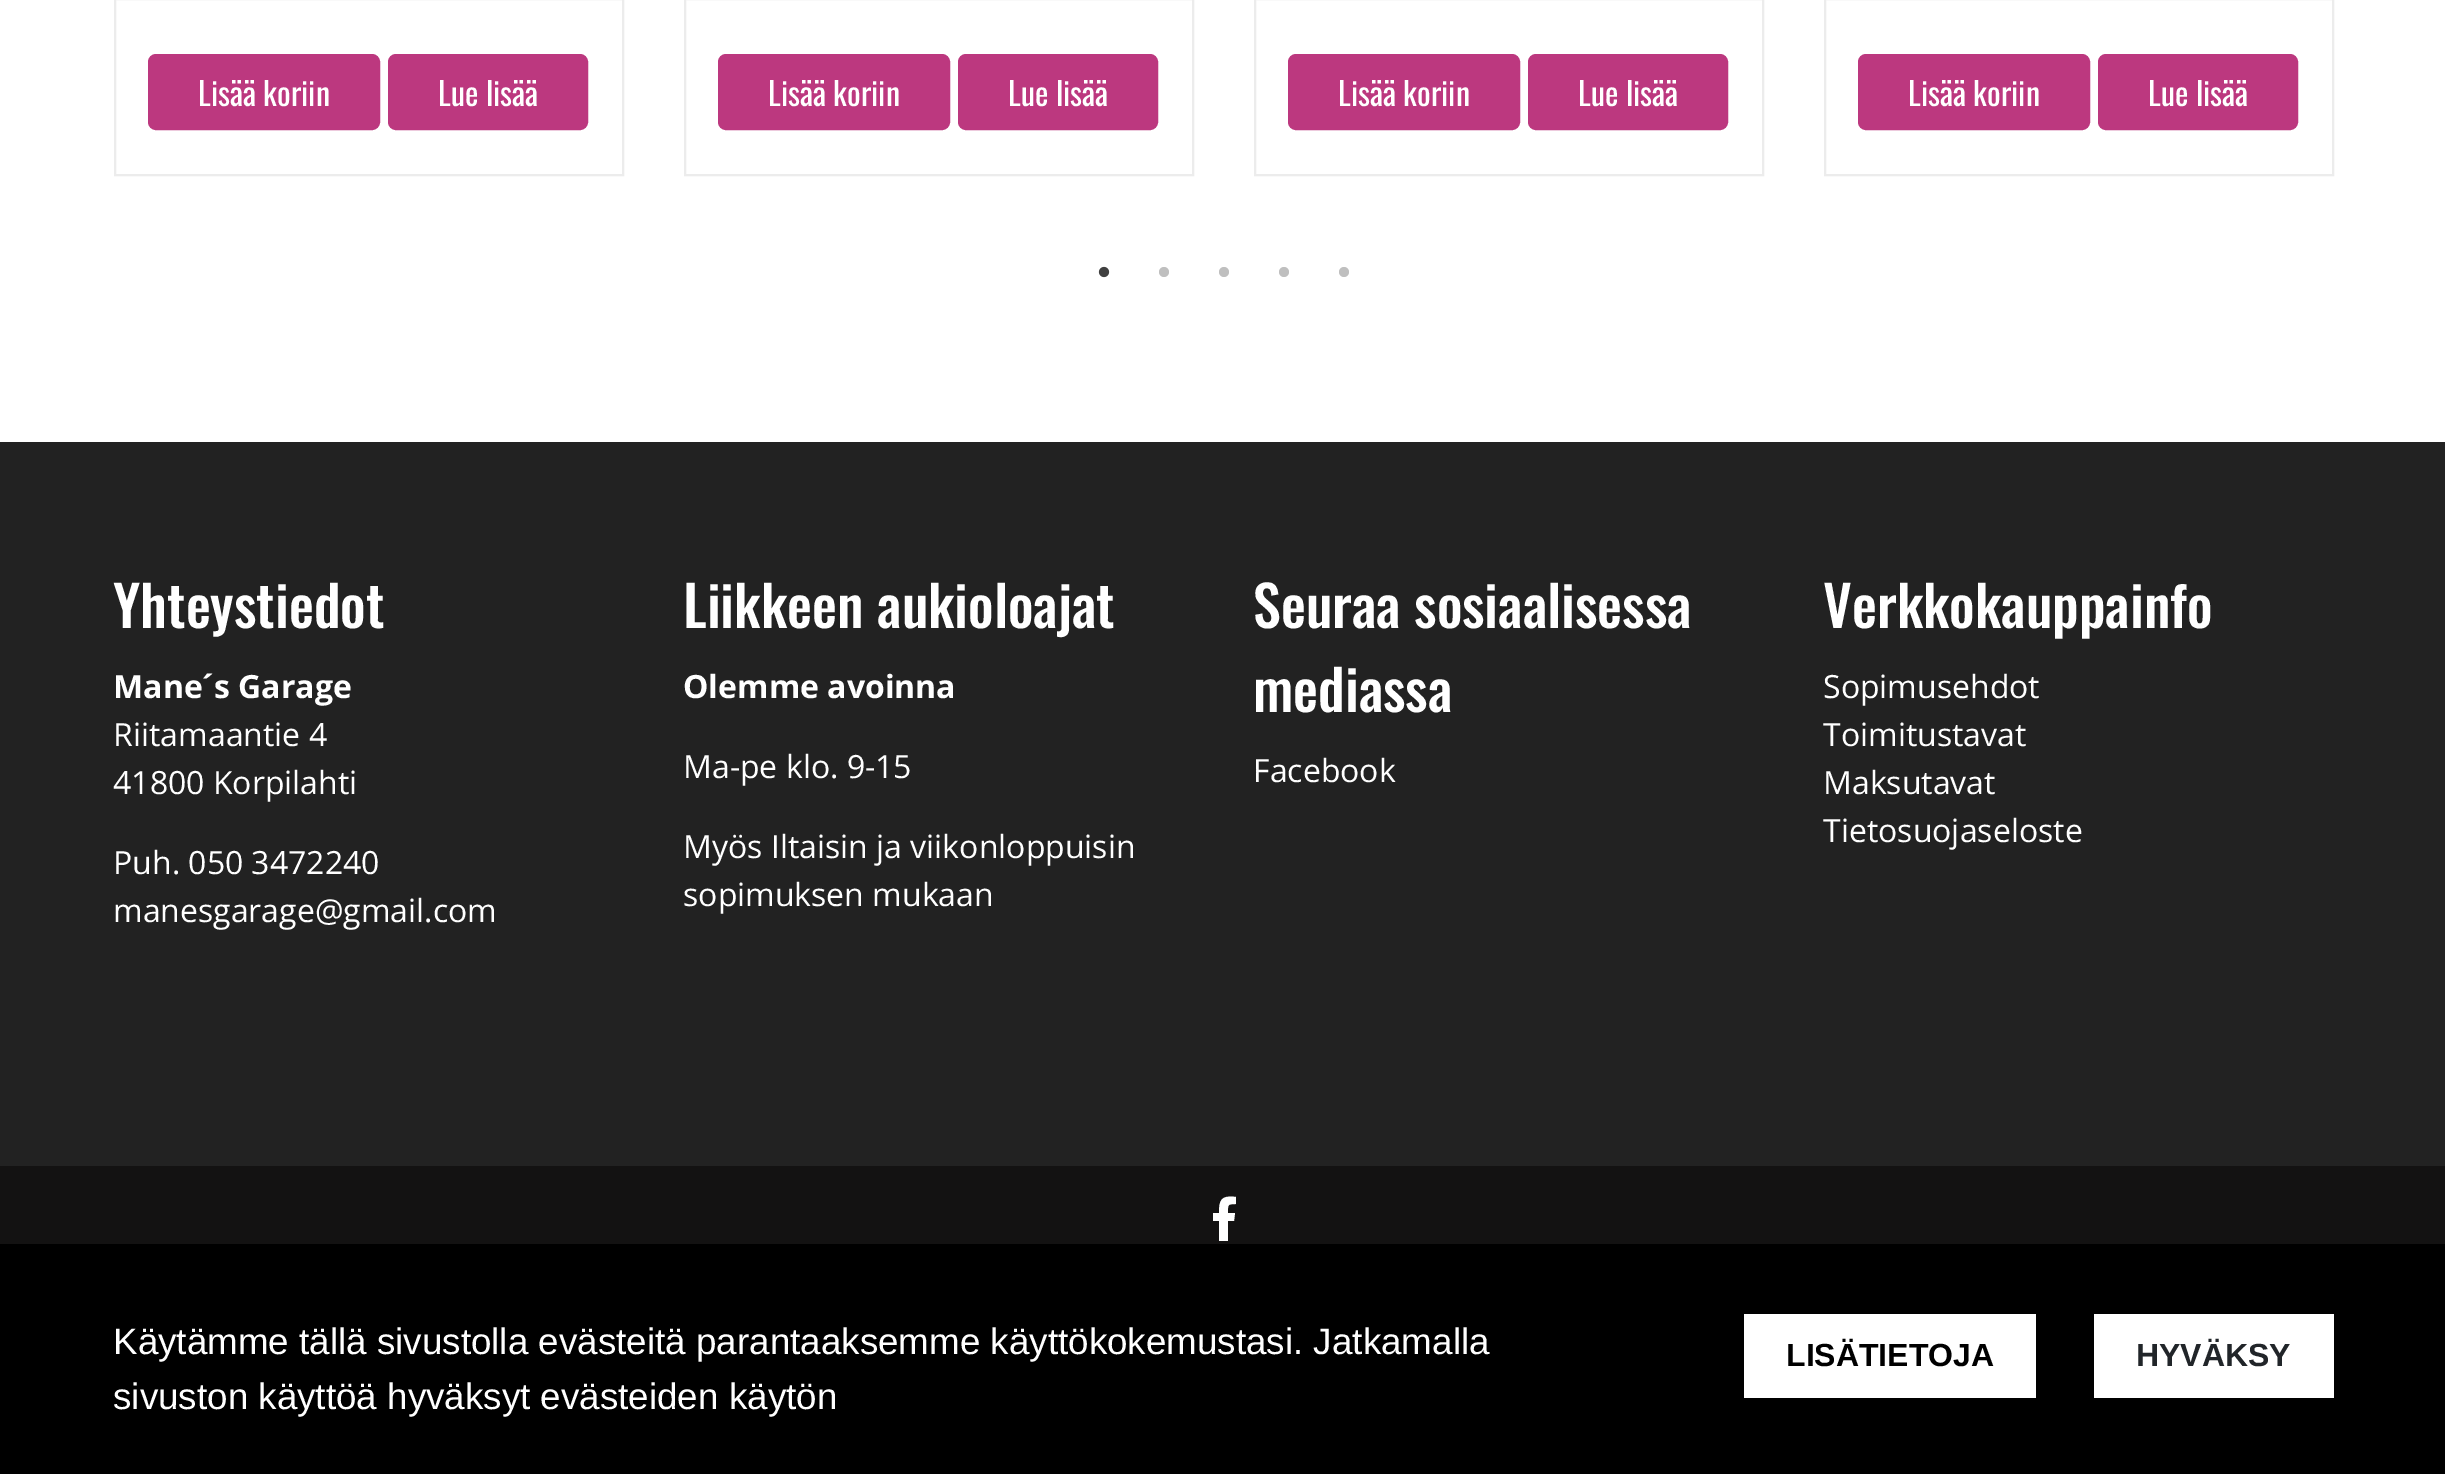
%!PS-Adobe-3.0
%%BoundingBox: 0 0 2445 1474
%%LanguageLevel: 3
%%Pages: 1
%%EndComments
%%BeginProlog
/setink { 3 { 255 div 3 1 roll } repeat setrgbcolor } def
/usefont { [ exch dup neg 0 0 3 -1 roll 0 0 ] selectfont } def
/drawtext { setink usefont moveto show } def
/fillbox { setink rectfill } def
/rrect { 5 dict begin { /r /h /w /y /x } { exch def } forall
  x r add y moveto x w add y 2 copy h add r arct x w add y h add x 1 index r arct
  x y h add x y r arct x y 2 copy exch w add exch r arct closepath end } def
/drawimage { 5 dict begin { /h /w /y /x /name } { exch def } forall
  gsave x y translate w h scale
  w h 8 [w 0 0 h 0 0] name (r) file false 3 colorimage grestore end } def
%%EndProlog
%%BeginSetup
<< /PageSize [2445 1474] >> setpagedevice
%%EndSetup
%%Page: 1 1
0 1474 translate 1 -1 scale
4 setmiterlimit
0 0 2445 1474 255 255 255 fillbox
236 236 236 setink
2 setlinewidth
115 -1 508 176 rectstroke
188 56 127 setink
149 55 230 74 7 rrect gsave fill grestore
stroke
(Lisää koriin) 198 106 /Oswald-Regular 32 255 255 255 drawtext
188 56 127 setink
389 55 198 74 7 rrect gsave fill grestore
stroke
(Lue lisää) 438 106 /Oswald-Regular 32 255 255 255 drawtext
236 236 236 setink
685 -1 508 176 rectstroke
188 56 127 setink
719 55 230 74 7 rrect gsave fill grestore
stroke
(Lisää koriin) 768 106 /Oswald-Regular 32 255 255 255 drawtext
188 56 127 setink
959 55 198 74 7 rrect gsave fill grestore
stroke
(Lue lisää) 1008 106 /Oswald-Regular 32 255 255 255 drawtext
236 236 236 setink
1255 -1 508 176 rectstroke
188 56 127 setink
1289 55 230 74 7 rrect gsave fill grestore
stroke
(Lisää koriin) 1338 106 /Oswald-Regular 32 255 255 255 drawtext
188 56 127 setink
1529 55 198 74 7 rrect gsave fill grestore
stroke
(Lue lisää) 1578 106 /Oswald-Regular 32 255 255 255 drawtext
236 236 236 setink
1825 -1 508 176 rectstroke
188 56 127 setink
1859 55 230 74 7 rrect gsave fill grestore
stroke
(Lisää koriin) 1908 106 /Oswald-Regular 32 255 255 255 drawtext
188 56 127 setink
2099 55 198 74 7 rrect gsave fill grestore
stroke
(Lue lisää) 2148 106 /Oswald-Regular 32 255 255 255 drawtext
(assets/img1.rgb) 1098 266 12 12 drawimage
(assets/img2.rgb) 1159 267 10 10 drawimage
(assets/img2.rgb) 1219 267 10 10 drawimage
(assets/img2.rgb) 1279 267 10 10 drawimage
(assets/img2.rgb) 1339 267 10 10 drawimage
0 442 2445 724 34 34 34 fillbox
(Yhteystiedot) 113 628 /Oswald-Medium 56 255 255 255 drawtext
(Mane´s Garage) 113 698 /OpenSans-Bold 32 255 255 255 drawtext
(Riitamaantie 4) 113 746 /OpenSans-Regular 32 255 255 255 drawtext
(41800 Korpilahti) 113 794 /OpenSans-Regular 32 255 255 255 drawtext
(Puh. 050 3472240) 113 874 /OpenSans-Regular 32 255 255 255 drawtext
(manesgarage@gmail.com) 113 922 /OpenSans-Regular 32 255 255 255 drawtext
(Liikkeen aukioloajat) 683 628 /Oswald-Medium 56 255 255 255 drawtext
(Olemme avoinna) 683 698 /OpenSans-Bold 32 255 255 255 drawtext
(Ma-pe klo. 9-15) 683 778 /OpenSans-Regular 32 255 255 255 drawtext
(Myös Iltaisin ja viikonloppuisin) 683 858 /OpenSans-Regular 32 255 255 255 drawtext
(sopimuksen mukaan) 683 906 /OpenSans-Regular 32 255 255 255 drawtext
(Seuraa sosiaalisessa) 1253 628 /Oswald-Medium 56 255 255 255 drawtext
(mediassa) 1253 712 /Oswald-Medium 56 255 255 255 drawtext
(Facebook) 1253 782 /OpenSans-Regular 32 255 255 255 drawtext
(Verkkokauppainfo) 1823 628 /Oswald-Medium 56 255 255 255 drawtext
(Sopimusehdot) 1823 698 /OpenSans-Regular 32 255 255 255 drawtext
(Toimitustavat) 1823 746 /OpenSans-Regular 32 255 255 255 drawtext
(Maksutavat) 1823 794 /OpenSans-Regular 32 255 255 255 drawtext
(Tietosuojaseloste) 1823 842 /OpenSans-Regular 32 255 255 255 drawtext
0 1166 2445 78 19 18 18 fillbox
255 255 255 setink
1236 1197 moveto 1236 1204 lineto 1227 1204 1228 1205 1228 1213 curveto 1235 1213 lineto 1234 1221 lineto 1228 1221 lineto 1228 1241 lineto 1219 1241 lineto 1219 1221 lineto 1213 1221 lineto 1213 1213 lineto 1219 1213 lineto 1219 1200 1221 1195 1236 1197 curveto closepath fill
0 1244 2445 230 0 0 0 fillbox
(Käytämme tällä sivustolla evästeitä parantaaksemme käyttökokemustasi. Jatkamalla) 113 1354 /LiberationSans-Regular 36.8 255 255 255 drawtext
(sivuston käyttöä hyväksyt evästeiden käytön) 113 1409 /LiberationSans-Regular 36.8 255 255 255 drawtext
1744 1314 292 84 255 255 255 fillbox
(LISÄTIETOJA) 1786 1366 /LiberationSans-Bold 32 0 0 0 drawtext
2094 1314 240 84 255 255 255 fillbox
(HYVÄKSY) 2136 1366 /LiberationSans-Bold 32 33 37 41 drawtext
showpage
%%EOF
